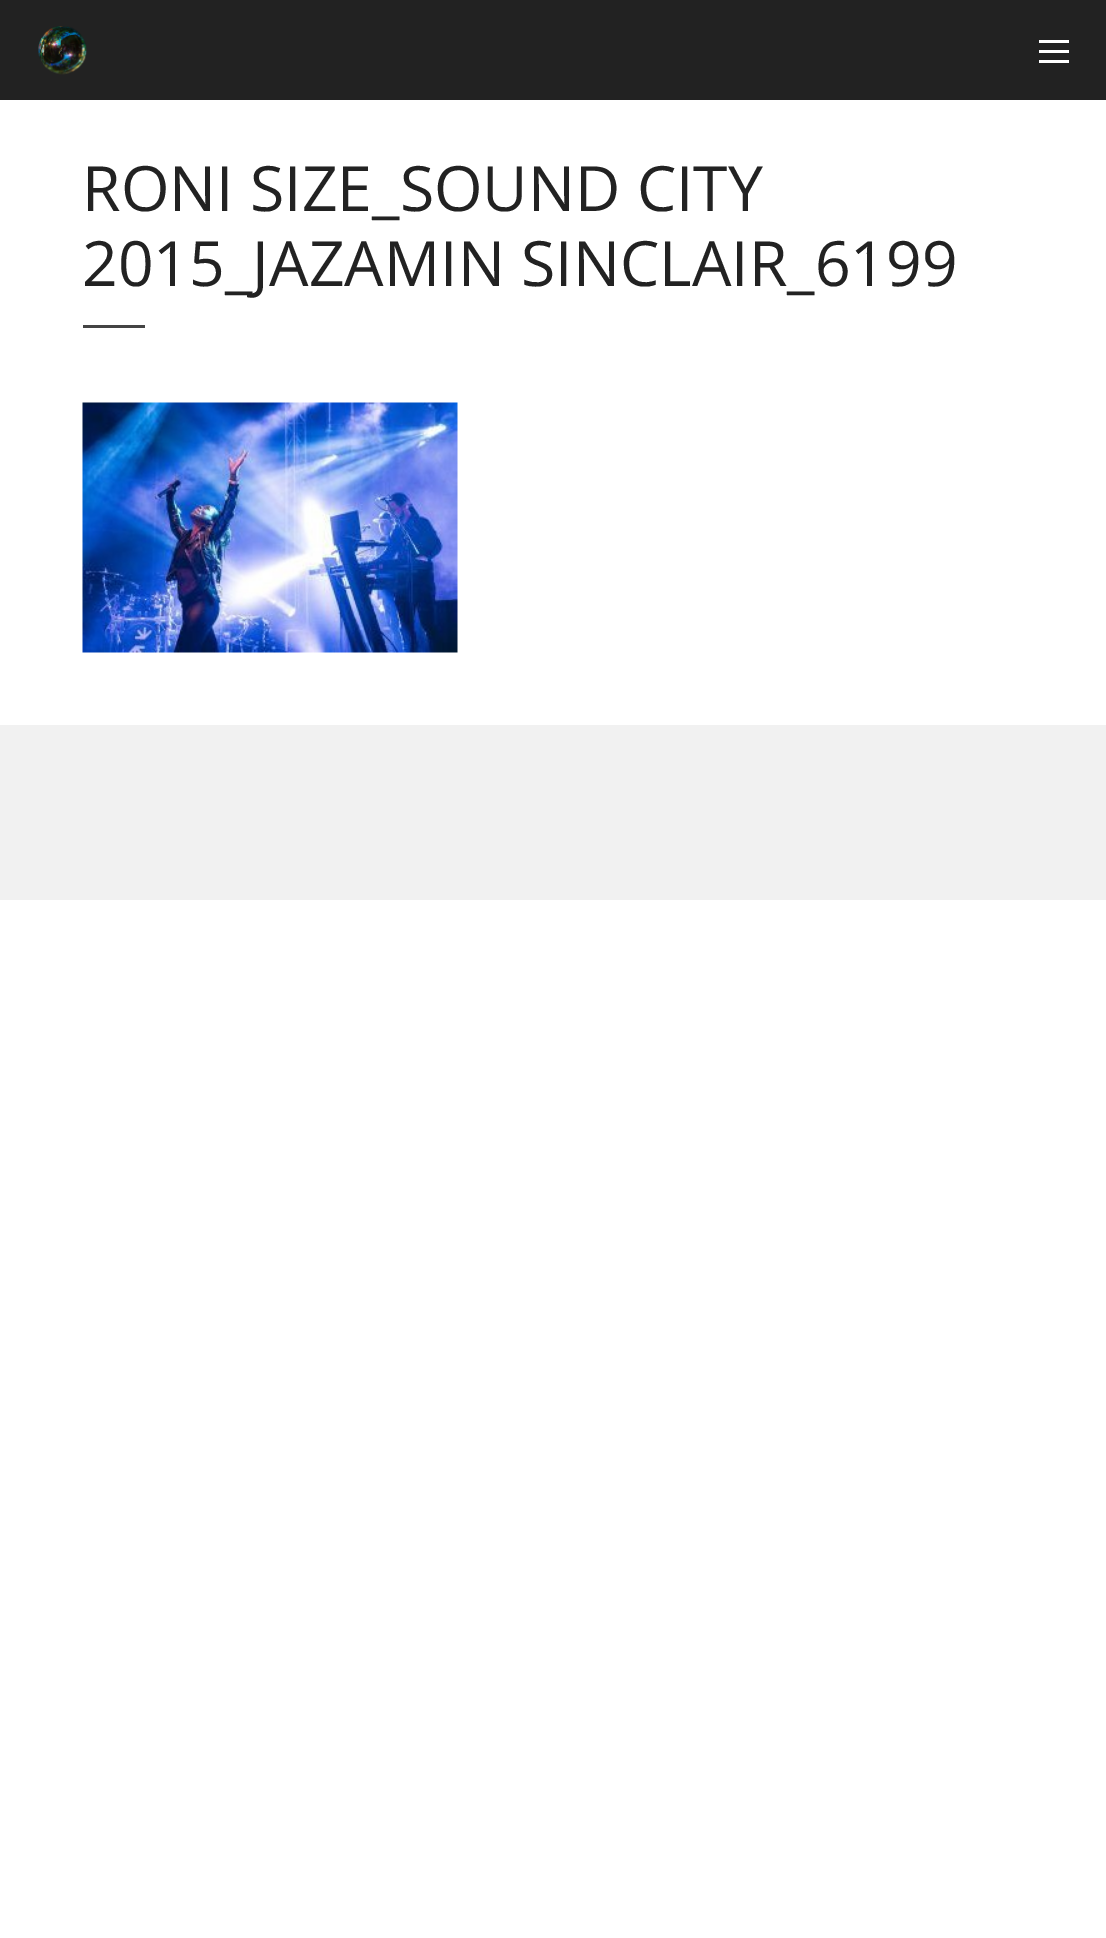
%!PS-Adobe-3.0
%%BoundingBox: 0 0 1106 1938
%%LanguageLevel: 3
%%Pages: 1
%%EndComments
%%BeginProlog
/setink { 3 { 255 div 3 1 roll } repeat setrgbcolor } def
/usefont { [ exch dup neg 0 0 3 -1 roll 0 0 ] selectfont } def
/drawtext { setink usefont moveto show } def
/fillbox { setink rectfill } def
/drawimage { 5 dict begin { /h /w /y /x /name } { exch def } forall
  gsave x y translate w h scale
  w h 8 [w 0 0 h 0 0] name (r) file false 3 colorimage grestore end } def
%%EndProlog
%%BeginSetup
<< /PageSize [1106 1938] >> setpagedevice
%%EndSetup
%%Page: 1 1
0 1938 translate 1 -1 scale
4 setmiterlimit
0 0 1106 1938 255 255 255 fillbox
0 0 1106 100 34 34 34 fillbox
(assets/img1.rgb) 38 26 49 49 drawimage
1039 50 30 3 255 255 255 fillbox
1039 40 30 3 255 255 255 fillbox
1039 60 30 3 255 255 255 fillbox
(RONI SIZE_SOUND CITY) 82 211 /OpenSans-Regular 62.5 34 34 34 drawtext
(2015_JAZAMIN SINCLAIR_6199) 82 286 /OpenSans-Regular 62.5 34 34 34 drawtext
83 325 62 3 68 68 68 fillbox
(assets/img2.rgb) 82 402 376 251 drawimage
0 725 1106 175 241 241 241 fillbox
showpage
%%EOF
